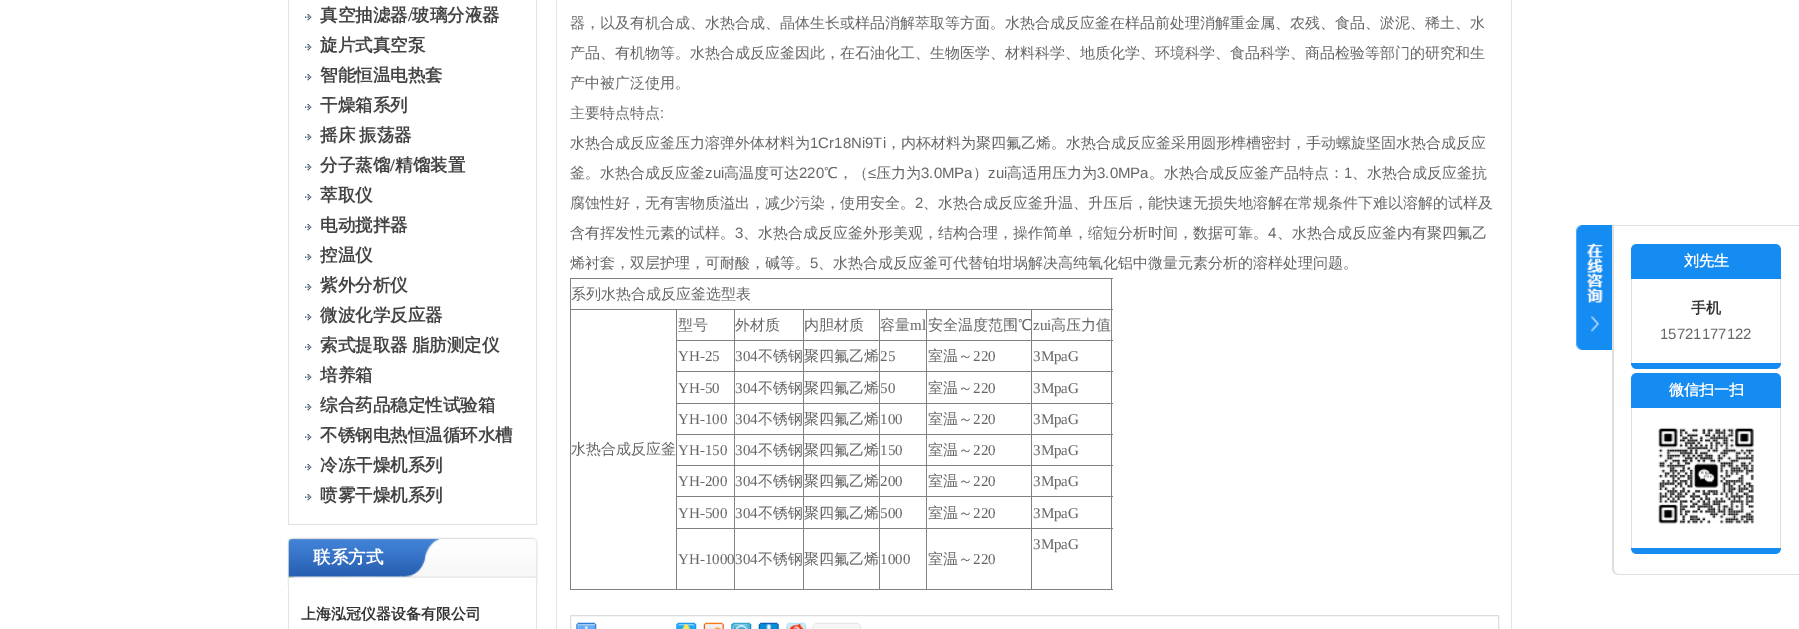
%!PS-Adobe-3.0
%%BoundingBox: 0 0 1799 629
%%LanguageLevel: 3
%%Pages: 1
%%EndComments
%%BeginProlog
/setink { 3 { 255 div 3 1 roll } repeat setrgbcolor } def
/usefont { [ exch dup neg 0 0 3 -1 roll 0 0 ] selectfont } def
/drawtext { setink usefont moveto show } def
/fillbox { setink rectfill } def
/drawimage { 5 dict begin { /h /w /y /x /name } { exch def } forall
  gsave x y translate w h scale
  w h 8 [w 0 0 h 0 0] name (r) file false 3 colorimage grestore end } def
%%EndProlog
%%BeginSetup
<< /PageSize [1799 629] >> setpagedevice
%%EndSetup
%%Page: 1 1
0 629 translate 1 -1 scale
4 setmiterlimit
0 0 1799 629 255 255 255 fillbox
536 0 1 525 227 227 227 fillbox
288 524 250 1 227 227 227 fillbox
288 0 1 525 227 227 227 fillbox
(assets/img1.rgb) 305 14 7 7 drawimage
(真空抽滤器) 320 21 /WenQuanYiZenHei-Bold 17.5 68 68 68 drawtext
(/) 408 21 /LiberationSerif-Bold 17.5 68 68 68 drawtext
(玻璃分液器) 412 21 /WenQuanYiZenHei-Bold 17.5 68 68 68 drawtext
(assets/img1.rgb) 305 44 7 7 drawimage
(旋片式真空泵) 320 51 /WenQuanYiZenHei-Bold 17.5 68 68 68 drawtext
(assets/img1.rgb) 305 74 7 7 drawimage
(智能恒温电热套) 320 81 /WenQuanYiZenHei-Bold 17.5 68 68 68 drawtext
(assets/img1.rgb) 305 104 7 7 drawimage
(干燥箱系列) 320 111 /WenQuanYiZenHei-Bold 17.5 68 68 68 drawtext
(assets/img1.rgb) 305 134 7 7 drawimage
320 141 moveto -1 0 32 (摇床 振荡器) widthshow
(assets/img1.rgb) 305 164 7 7 drawimage
(分子蒸馏) 320 171 /WenQuanYiZenHei-Bold 17.5 68 68 68 drawtext
(/) 390 171 /LiberationSerif-Bold 17.5 68 68 68 drawtext
(精馏装置) 395 171 /WenQuanYiZenHei-Bold 17.5 68 68 68 drawtext
(assets/img1.rgb) 305 194 7 7 drawimage
(萃取仪) 320 201 /WenQuanYiZenHei-Bold 17.5 68 68 68 drawtext
(assets/img1.rgb) 305 224 7 7 drawimage
(电动搅拌器) 320 231 /WenQuanYiZenHei-Bold 17.5 68 68 68 drawtext
(assets/img1.rgb) 305 254 7 7 drawimage
(控温仪) 320 261 /WenQuanYiZenHei-Bold 17.5 68 68 68 drawtext
(assets/img1.rgb) 305 284 7 7 drawimage
(紫外分析仪) 320 291 /WenQuanYiZenHei-Bold 17.5 68 68 68 drawtext
(assets/img1.rgb) 305 314 7 7 drawimage
(微波化学反应器) 320 321 /WenQuanYiZenHei-Bold 17.5 68 68 68 drawtext
(assets/img1.rgb) 305 344 7 7 drawimage
320 351 moveto -1 0 32 (索式提取器 脂肪测定仪) widthshow
(assets/img1.rgb) 305 374 7 7 drawimage
(培养箱) 320 381 /WenQuanYiZenHei-Bold 17.5 68 68 68 drawtext
(assets/img1.rgb) 305 404 7 7 drawimage
(综合药品稳定性试验箱) 320 411 /WenQuanYiZenHei-Bold 17.5 68 68 68 drawtext
(assets/img1.rgb) 305 434 7 7 drawimage
(不锈钢电热恒温循环水槽) 320 441 /WenQuanYiZenHei-Bold 17.5 68 68 68 drawtext
(assets/img1.rgb) 305 464 7 7 drawimage
(冷冻干燥机系列) 320 471 /WenQuanYiZenHei-Bold 17.5 68 68 68 drawtext
(assets/img1.rgb) 305 494 7 7 drawimage
(喷雾干燥机系列) 320 501 /WenQuanYiZenHei-Bold 17.5 68 68 68 drawtext
(assets/img2.rgb) 287 537 251 50 drawimage
(联系方式) 313 563 /WenQuanYiZenHei-Bold 17.5 255 255 255 drawtext
536 586 1 43 227 227 227 fillbox
288 586 1 43 227 227 227 fillbox
(上海泓冠仪器设备有限公司) 301 619 /WenQuanYiZenHei-Bold 15 51 51 51 drawtext
1511 0 1 629 227 227 227 fillbox
556 0 1 629 227 227 227 fillbox
(器，以及有机合成、水热合成、晶体生长或样品消解萃取等方面。水热合成反应釜在样品前处理消解重金属、农残、食品、淤泥、稀土、水) 570 28 /WenQuanYiZenHei-Medium 15 102 102 102 drawtext
(产品、有机物等。水热合成反应釜因此，在石油化工、生物医学、材料科学、地质化学、环境科学、食品科学、商品检验等部门的研究和生) 570 58 /WenQuanYiZenHei-Medium 15 102 102 102 drawtext
(产中被广泛使用。) 570 88 /WenQuanYiZenHei-Medium 15 102 102 102 drawtext
(主要特点特点) 570 118 /WenQuanYiZenHei-Medium 15 102 102 102 drawtext
(:) 660 118 /LiberationSans-Regular 15 102 102 102 drawtext
(水热合成反应釜压力溶弹外体材料为) 570 148 /WenQuanYiZenHei-Medium 15 102 102 102 drawtext
(1Cr18Ni9Ti) 810 148 /LiberationSans-Regular 15 102 102 102 drawtext
(，内杯材料为聚四氟乙烯。水热合成反应釜采用圆形榫槽密封，手动螺旋坚固水热合成反应) 886 148 /WenQuanYiZenHei-Medium 15 102 102 102 drawtext
(釜。水热合成反应釜) 570 178 /WenQuanYiZenHei-Medium 15 102 102 102 drawtext
(zui) 705 178 /LiberationSans-Regular 15 102 102 102 drawtext
(高温度可达) 724 178 /WenQuanYiZenHei-Medium 15 102 102 102 drawtext
(220) 799 178 /LiberationSans-Regular 15 102 102 102 drawtext
(℃，（) 824 178 /WenQuanYiZenHei-Medium 15 102 102 102 drawtext
(≤) 868 178 /LiberationSans-Regular 15 102 102 102 drawtext
(压力为) 876 178 /WenQuanYiZenHei-Medium 15 102 102 102 drawtext
(3.0MPa) 921 178 /LiberationSans-Regular 15 102 102 102 drawtext
(）) 973 178 /WenQuanYiZenHei-Medium 15 102 102 102 drawtext
(zui) 988 178 /LiberationSans-Regular 15 102 102 102 drawtext
(高适用压力为) 1007 178 /WenQuanYiZenHei-Medium 15 102 102 102 drawtext
(3.0MPa) 1097 178 /LiberationSans-Regular 15 102 102 102 drawtext
(。水热合成反应釜产品特点：) 1149 178 /WenQuanYiZenHei-Medium 15 102 102 102 drawtext
(1) 1344 178 /LiberationSans-Regular 15 102 102 102 drawtext
(、水热合成反应釜抗) 1352 178 /WenQuanYiZenHei-Medium 15 102 102 102 drawtext
(腐蚀性好，无有害物质溢出，减少污染，使用安全。) 570 208 /WenQuanYiZenHei-Medium 15 102 102 102 drawtext
(2) 915 208 /LiberationSans-Regular 15 102 102 102 drawtext
(、水热合成反应釜升温、升压后，能快速无损失地溶解在常规条件下难以溶解的试样及) 923 208 /WenQuanYiZenHei-Medium 15 102 102 102 drawtext
(含有挥发性元素的试样。) 570 238 /WenQuanYiZenHei-Medium 15 102 102 102 drawtext
(3) 735 238 /LiberationSans-Regular 15 102 102 102 drawtext
(、水热合成反应釜外形美观，结构合理，操作简单，缩短分析时间，数据可靠。) 743 238 /WenQuanYiZenHei-Medium 15 102 102 102 drawtext
(4) 1268 238 /LiberationSans-Regular 15 102 102 102 drawtext
(、水热合成反应釜内有聚四氟乙) 1277 238 /WenQuanYiZenHei-Medium 15 102 102 102 drawtext
(烯衬套，双层护理，可耐酸，碱等。) 570 268 /WenQuanYiZenHei-Medium 15 102 102 102 drawtext
(5) 810 268 /LiberationSans-Regular 15 102 102 102 drawtext
(、水热合成反应釜可代替铂坩埚解决高纯氧化铝中微量元素分析的溶样处理问题。) 818 268 /WenQuanYiZenHei-Medium 15 102 102 102 drawtext
570 278 543 1 128 128 128 fillbox
1111 278 1 312 128 128 128 fillbox
570 589 543 1 128 128 128 fillbox
570 278 1 312 128 128 128 fillbox
(系列水热合成反应釜选型表) 571 299 /WenQuanYiZenHei-Medium 15 102 102 102 drawtext
1031 309 82 1 128 128 128 fillbox
1031 340 82 1 128 128 128 fillbox
1031 371 82 1 128 128 128 fillbox
1031 403 82 1 128 128 128 fillbox
1031 434 82 1 128 128 128 fillbox
1031 465 82 1 128 128 128 fillbox
1031 496 82 1 128 128 128 fillbox
1031 528 82 1 128 128 128 fillbox
1031 528 1 62 128 128 128 fillbox
926 528 107 1 128 128 128 fillbox
1031 496 1 33 128 128 128 fillbox
926 496 107 1 128 128 128 fillbox
1031 465 1 33 128 128 128 fillbox
926 465 107 1 128 128 128 fillbox
1031 434 1 32 128 128 128 fillbox
926 434 107 1 128 128 128 fillbox
1031 403 1 32 128 128 128 fillbox
926 403 107 1 128 128 128 fillbox
1031 371 1 33 128 128 128 fillbox
926 371 107 1 128 128 128 fillbox
1031 340 1 33 128 128 128 fillbox
926 340 107 1 128 128 128 fillbox
1031 309 1 32 128 128 128 fillbox
926 309 107 1 128 128 128 fillbox
926 528 1 62 128 128 128 fillbox
879 528 49 1 128 128 128 fillbox
926 496 1 33 128 128 128 fillbox
879 496 49 1 128 128 128 fillbox
926 465 1 33 128 128 128 fillbox
879 465 49 1 128 128 128 fillbox
926 434 1 32 128 128 128 fillbox
879 434 49 1 128 128 128 fillbox
926 403 1 32 128 128 128 fillbox
879 403 49 1 128 128 128 fillbox
926 371 1 33 128 128 128 fillbox
879 371 49 1 128 128 128 fillbox
926 340 1 33 128 128 128 fillbox
879 340 49 1 128 128 128 fillbox
926 309 1 32 128 128 128 fillbox
879 309 49 1 128 128 128 fillbox
879 528 1 62 128 128 128 fillbox
803 528 77 1 128 128 128 fillbox
879 496 1 33 128 128 128 fillbox
803 496 77 1 128 128 128 fillbox
879 465 1 33 128 128 128 fillbox
803 465 77 1 128 128 128 fillbox
879 434 1 32 128 128 128 fillbox
803 434 77 1 128 128 128 fillbox
879 403 1 32 128 128 128 fillbox
803 403 77 1 128 128 128 fillbox
879 371 1 33 128 128 128 fillbox
803 371 77 1 128 128 128 fillbox
879 340 1 33 128 128 128 fillbox
803 340 77 1 128 128 128 fillbox
879 309 1 32 128 128 128 fillbox
803 309 77 1 128 128 128 fillbox
803 528 1 62 128 128 128 fillbox
734 528 70 1 128 128 128 fillbox
803 496 1 33 128 128 128 fillbox
734 496 70 1 128 128 128 fillbox
803 465 1 33 128 128 128 fillbox
734 465 70 1 128 128 128 fillbox
803 434 1 32 128 128 128 fillbox
734 434 70 1 128 128 128 fillbox
803 403 1 32 128 128 128 fillbox
734 403 70 1 128 128 128 fillbox
803 371 1 33 128 128 128 fillbox
734 371 70 1 128 128 128 fillbox
803 340 1 33 128 128 128 fillbox
734 340 70 1 128 128 128 fillbox
803 309 1 32 128 128 128 fillbox
734 309 70 1 128 128 128 fillbox
734 528 1 62 128 128 128 fillbox
676 528 59 1 128 128 128 fillbox
734 496 1 33 128 128 128 fillbox
676 496 59 1 128 128 128 fillbox
734 465 1 33 128 128 128 fillbox
676 465 59 1 128 128 128 fillbox
734 434 1 32 128 128 128 fillbox
676 434 59 1 128 128 128 fillbox
734 403 1 32 128 128 128 fillbox
676 403 59 1 128 128 128 fillbox
734 371 1 33 128 128 128 fillbox
676 371 59 1 128 128 128 fillbox
734 340 1 33 128 128 128 fillbox
676 340 59 1 128 128 128 fillbox
734 309 1 32 128 128 128 fillbox
676 309 59 1 128 128 128 fillbox
676 528 1 62 128 128 128 fillbox
676 496 1 33 128 128 128 fillbox
676 465 1 33 128 128 128 fillbox
676 434 1 32 128 128 128 fillbox
676 403 1 32 128 128 128 fillbox
676 371 1 33 128 128 128 fillbox
676 340 1 33 128 128 128 fillbox
676 309 1 32 128 128 128 fillbox
(型号) 678 330 /WenQuanYiZenHei-Medium 15 102 102 102 drawtext
(外材质) 735 330 /WenQuanYiZenHei-Medium 15 102 102 102 drawtext
(内胆材质) 804 330 /WenQuanYiZenHei-Medium 15 102 102 102 drawtext
(容量) 880 330 /WenQuanYiZenHei-Medium 15 102 102 102 drawtext
(ml) 910 330 /LiberationSerif-Regular 15 102 102 102 drawtext
(安全温度范围℃) 928 330 /WenQuanYiZenHei-Medium 15 102 102 102 drawtext
(zui) 1033 330 /LiberationSerif-Regular 15 102 102 102 drawtext
(高压力值) 1051 330 /WenQuanYiZenHei-Medium 15 102 102 102 drawtext
570 309 108 1 128 128 128 fillbox
(水热合成反应釜) 571 454 /WenQuanYiZenHei-Medium 15 102 102 102 drawtext
(YH-25) 678 361 /LiberationSerif-Regular 15 102 102 102 drawtext
(304) 735 361 /LiberationSerif-Regular 15 102 102 102 drawtext
(不锈钢) 758 361 /WenQuanYiZenHei-Medium 15 102 102 102 drawtext
(聚四氟乙烯) 804 361 /WenQuanYiZenHei-Medium 15 102 102 102 drawtext
(25) 880 361 /LiberationSerif-Regular 15 102 102 102 drawtext
(室温～) 928 361 /WenQuanYiZenHei-Medium 15 102 102 102 drawtext
(220) 973 361 /LiberationSerif-Regular 15 102 102 102 drawtext
(3MpaG) 1033 361 /LiberationSerif-Regular 15 102 102 102 drawtext
(YH-50) 678 393 /LiberationSerif-Regular 15 102 102 102 drawtext
(304) 735 393 /LiberationSerif-Regular 15 102 102 102 drawtext
(不锈钢) 758 393 /WenQuanYiZenHei-Medium 15 102 102 102 drawtext
(聚四氟乙烯) 804 393 /WenQuanYiZenHei-Medium 15 102 102 102 drawtext
(50) 880 393 /LiberationSerif-Regular 15 102 102 102 drawtext
(室温～) 928 393 /WenQuanYiZenHei-Medium 15 102 102 102 drawtext
(220) 973 393 /LiberationSerif-Regular 15 102 102 102 drawtext
(3MpaG) 1033 393 /LiberationSerif-Regular 15 102 102 102 drawtext
(YH-100) 678 424 /LiberationSerif-Regular 15 102 102 102 drawtext
(304) 735 424 /LiberationSerif-Regular 15 102 102 102 drawtext
(不锈钢) 758 424 /WenQuanYiZenHei-Medium 15 102 102 102 drawtext
(聚四氟乙烯) 804 424 /WenQuanYiZenHei-Medium 15 102 102 102 drawtext
(100) 880 424 /LiberationSerif-Regular 15 102 102 102 drawtext
(室温～) 928 424 /WenQuanYiZenHei-Medium 15 102 102 102 drawtext
(220) 973 424 /LiberationSerif-Regular 15 102 102 102 drawtext
(3MpaG) 1033 424 /LiberationSerif-Regular 15 102 102 102 drawtext
(YH-150) 678 455 /LiberationSerif-Regular 15 102 102 102 drawtext
(304) 735 455 /LiberationSerif-Regular 15 102 102 102 drawtext
(不锈钢) 758 455 /WenQuanYiZenHei-Medium 15 102 102 102 drawtext
(聚四氟乙烯) 804 455 /WenQuanYiZenHei-Medium 15 102 102 102 drawtext
(150) 880 455 /LiberationSerif-Regular 15 102 102 102 drawtext
(室温～) 928 455 /WenQuanYiZenHei-Medium 15 102 102 102 drawtext
(220) 973 455 /LiberationSerif-Regular 15 102 102 102 drawtext
(3MpaG) 1033 455 /LiberationSerif-Regular 15 102 102 102 drawtext
(YH-200) 678 486 /LiberationSerif-Regular 15 102 102 102 drawtext
(304) 735 486 /LiberationSerif-Regular 15 102 102 102 drawtext
(不锈钢) 758 486 /WenQuanYiZenHei-Medium 15 102 102 102 drawtext
(聚四氟乙烯) 804 486 /WenQuanYiZenHei-Medium 15 102 102 102 drawtext
(200) 880 486 /LiberationSerif-Regular 15 102 102 102 drawtext
(室温～) 928 486 /WenQuanYiZenHei-Medium 15 102 102 102 drawtext
(220) 973 486 /LiberationSerif-Regular 15 102 102 102 drawtext
(3MpaG) 1033 486 /LiberationSerif-Regular 15 102 102 102 drawtext
(YH-500) 678 518 /LiberationSerif-Regular 15 102 102 102 drawtext
(304) 735 518 /LiberationSerif-Regular 15 102 102 102 drawtext
(不锈钢) 758 518 /WenQuanYiZenHei-Medium 15 102 102 102 drawtext
(聚四氟乙烯) 804 518 /WenQuanYiZenHei-Medium 15 102 102 102 drawtext
(500) 880 518 /LiberationSerif-Regular 15 102 102 102 drawtext
(室温～) 928 518 /WenQuanYiZenHei-Medium 15 102 102 102 drawtext
(220) 973 518 /LiberationSerif-Regular 15 102 102 102 drawtext
(3MpaG) 1033 518 /LiberationSerif-Regular 15 102 102 102 drawtext
(3MpaG) 1033 549 /LiberationSerif-Regular 15 102 102 102 drawtext
(YH-1000) 678 564 /LiberationSerif-Regular 15 102 102 102 drawtext
(304) 735 564 /LiberationSerif-Regular 15 102 102 102 drawtext
(不锈钢) 758 564 /WenQuanYiZenHei-Medium 15 102 102 102 drawtext
(聚四氟乙烯) 804 564 /WenQuanYiZenHei-Medium 15 102 102 102 drawtext
(1000) 880 564 /LiberationSerif-Regular 15 102 102 102 drawtext
(室温～) 928 564 /WenQuanYiZenHei-Medium 15 102 102 102 drawtext
(220) 973 564 /LiberationSerif-Regular 15 102 102 102 drawtext
221 221 221 setink
570.5 615.5 928 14 rectstroke
(assets/img3.rgb) 576 622 21 7 drawimage
(assets/img4.rgb) 676 622 21 7 drawimage
(assets/img5.rgb) 703 622 21 7 drawimage
(assets/img6.rgb) 731 622 21 7 drawimage
(assets/img7.rgb) 758 622 21 7 drawimage
(assets/img8.rgb) 786 622 21 7 drawimage
(assets/img9.rgb) 812 622 50 7 drawimage
(assets/img10.rgb) 1576 225 36 125 drawimage
223 223 223 setink
1612 225 moveto 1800 225 lineto 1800 575 lineto 1619 575 lineto 1615 575 1612 572 1612 569 curveto closepath 1614 226 moveto 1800 226 lineto 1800 574 lineto 1619 574 lineto 1616 574 1614 572 1614 569 curveto closepath eofill
21 140 241 setink
1637 244 moveto 1775 244 lineto 1778.5 244 1781 246.5 1781 250 curveto 1781 279 lineto 1631 279 lineto 1631 250 lineto 1631 246.5 1633.5 244 1637 244 curveto closepath fill
(刘先生) 1684 266 /WenQuanYiZenHei-Bold 15 255 255 255 drawtext
1780 279 1 84 223 223 223 fillbox
1631 279 1 84 223 223 223 fillbox
(手机) 1691 313 /WenQuanYiZenHei-Bold 15 51 51 51 drawtext
(15721177122) 1660 339 /LiberationSans-Regular 15 102 102 102 drawtext
21 140 241 setink
1631 363 moveto 1781 363 lineto 1781 366.5 1778.5 369 1775 369 curveto 1637 369 lineto 1633.5 369 1631 366.5 1631 363 curveto closepath fill
1637 373 moveto 1775 373 lineto 1778.5 373 1781 375.5 1781 379 curveto 1781 408 lineto 1631 408 lineto 1631 379 lineto 1631 375.5 1633.5 373 1637 373 curveto closepath fill
(微信扫一扫) 1669 395 /WenQuanYiZenHei-Bold 15 255 255 255 drawtext
1780 408 1 140 223 223 223 fillbox
1631 408 1 140 223 223 223 fillbox
(assets/img11.rgb) 1658 427 96 97 drawimage
21 140 241 setink
1631 548 moveto 1781 548 lineto 1781 551.5 1778.5 554 1775 554 curveto 1637 554 lineto 1633.5 554 1631 551.5 1631 548 curveto closepath fill
showpage
%%EOF
